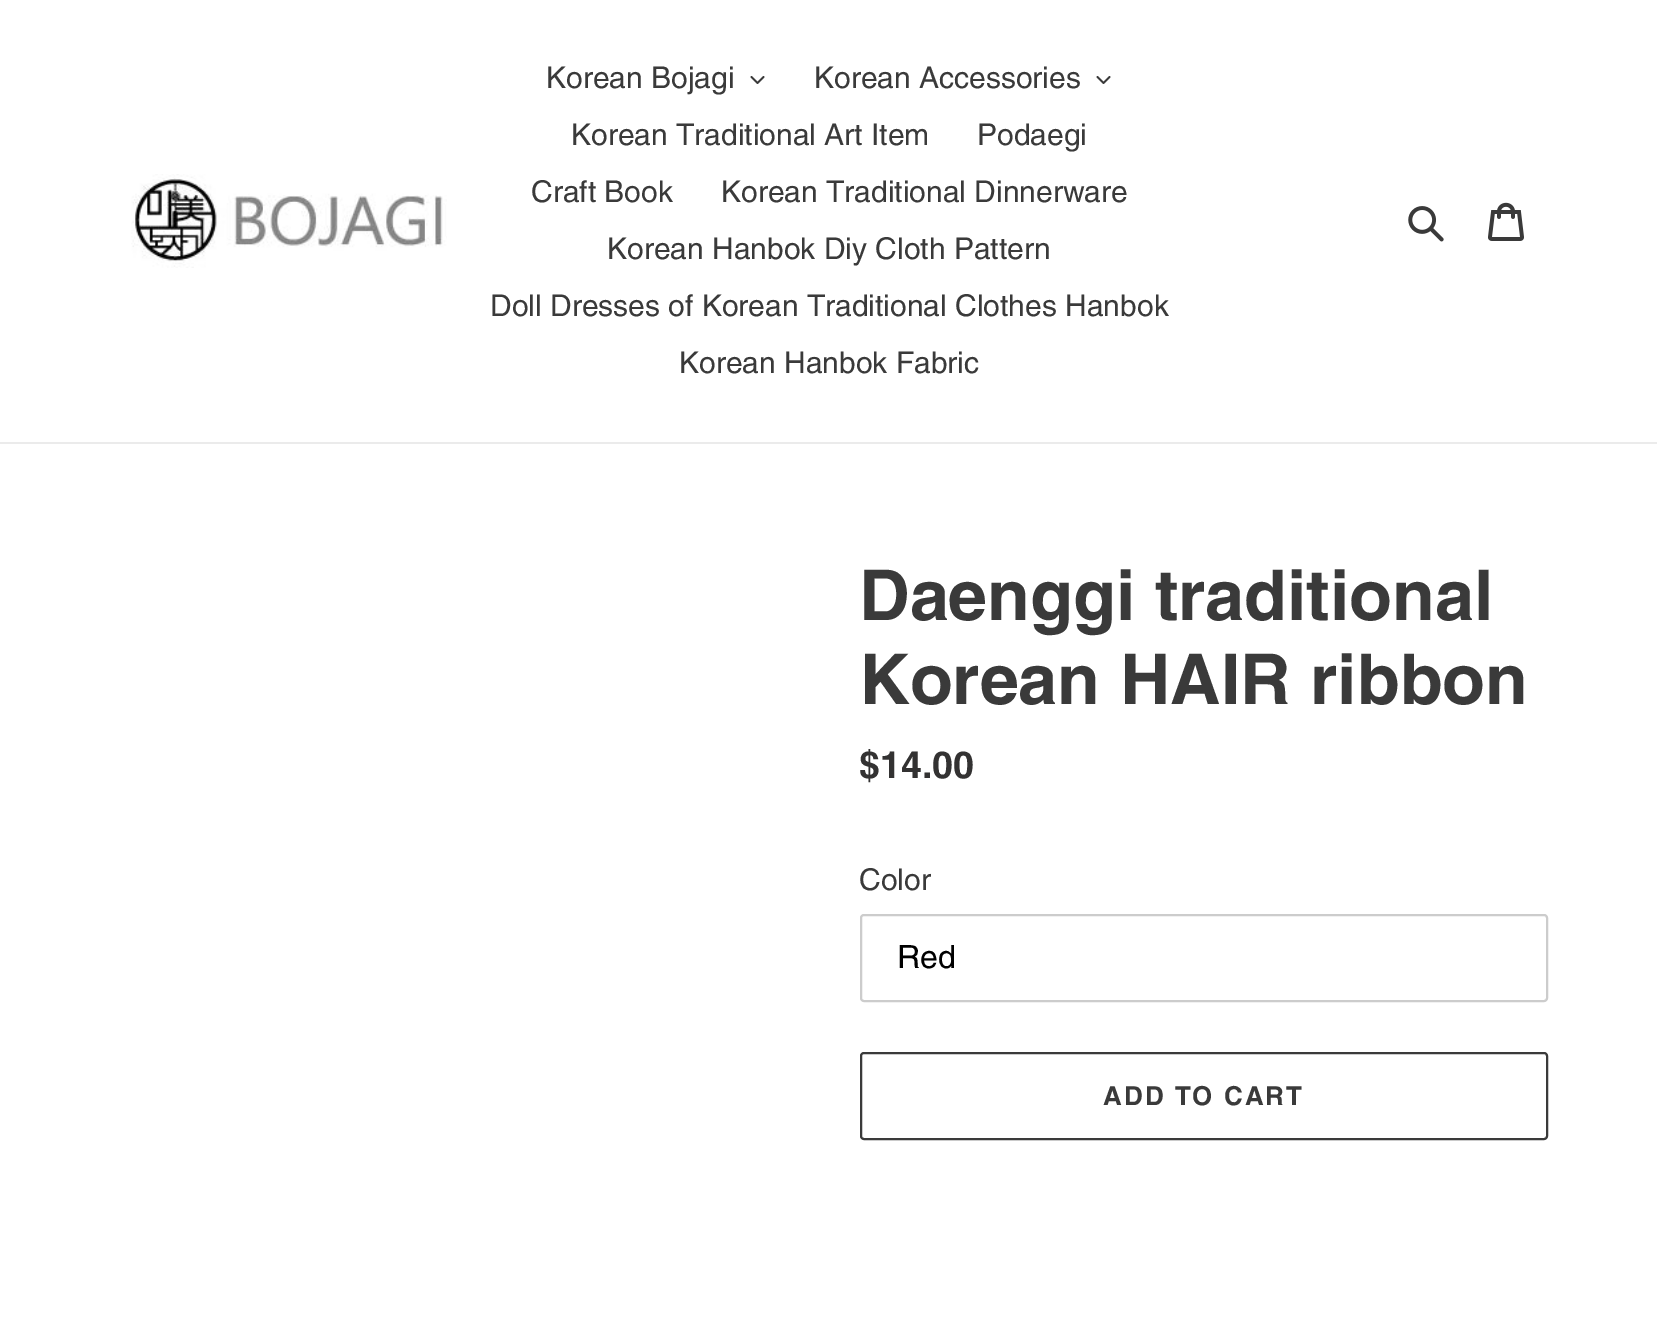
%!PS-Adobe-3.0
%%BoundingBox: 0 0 1657 1320
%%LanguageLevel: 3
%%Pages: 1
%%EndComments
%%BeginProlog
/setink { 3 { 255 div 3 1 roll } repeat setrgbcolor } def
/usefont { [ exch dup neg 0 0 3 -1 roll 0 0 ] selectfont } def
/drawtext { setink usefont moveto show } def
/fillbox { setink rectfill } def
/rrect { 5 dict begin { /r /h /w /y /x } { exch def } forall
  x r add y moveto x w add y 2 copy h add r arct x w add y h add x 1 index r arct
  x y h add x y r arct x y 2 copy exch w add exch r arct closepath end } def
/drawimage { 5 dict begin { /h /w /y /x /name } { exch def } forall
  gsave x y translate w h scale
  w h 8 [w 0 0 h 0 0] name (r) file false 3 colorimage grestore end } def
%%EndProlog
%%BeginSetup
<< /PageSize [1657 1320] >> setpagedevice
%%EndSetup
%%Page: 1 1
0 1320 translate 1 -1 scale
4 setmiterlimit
0 0 1657 1320 255 255 255 fillbox
0 442 1657 2 235 235 235 fillbox
(assets/img1.rgb) 131 174 316 94 drawimage
(Korean Bojagi) 546 88 /Helvetica-Regular 30 58 58 58 drawtext
(assets/img2.rgb) 750 76 15 8 drawimage
(Korean Accessories) 814 88 /Helvetica-Regular 30 58 58 58 drawtext
(assets/img2.rgb) 1096 76 15 8 drawimage
(Korean Traditional Art Item) 571 145 /Helvetica-Regular 30 58 58 58 drawtext
(Podaegi) 977 145 /Helvetica-Regular 30 58 58 58 drawtext
(Craft Book) 531 202 /Helvetica-Regular 30 58 58 58 drawtext
(Korean Traditional Dinnerware) 721 202 /Helvetica-Regular 30 58 58 58 drawtext
(Korean Hanbok Diy Cloth Pattern) 607 259 /Helvetica-Regular 30 58 58 58 drawtext
(Doll Dresses of Korean Traditional Clothes Hanbok) 490 316 /Helvetica-Regular 30 58 58 58 drawtext
(Korean Hanbok Fabric) 679 373 /Helvetica-Regular 30 58 58 58 drawtext
(assets/img3.rgb) 1408 206 36 36 drawimage
(assets/img4.rgb) 1488 202 36 39 drawimage
(Daenggi traditional) 859 620 /Helvetica-Bold 70 58 58 58 drawtext
(Korean HAIR ribbon) 859 704 /Helvetica-Bold 70 58 58 58 drawtext
($14.00) 859 778 /Helvetica-Bold 37.5 51 50 50 drawtext
(Color) 859 890 /Helvetica-Regular 30 58 58 58 drawtext
204 204 204 setink
2 setlinewidth
861 915 686 86 3 rrect stroke
(Red) 897 968 /Helvetica-Regular 32 0 0 0 drawtext
58 58 58 setink
861 1053 686 86 3 rrect stroke
/Helvetica-Bold 26 usefont
1103 1105 moveto 2 0 (ADD TO CART) ashow
showpage
%%EOF
